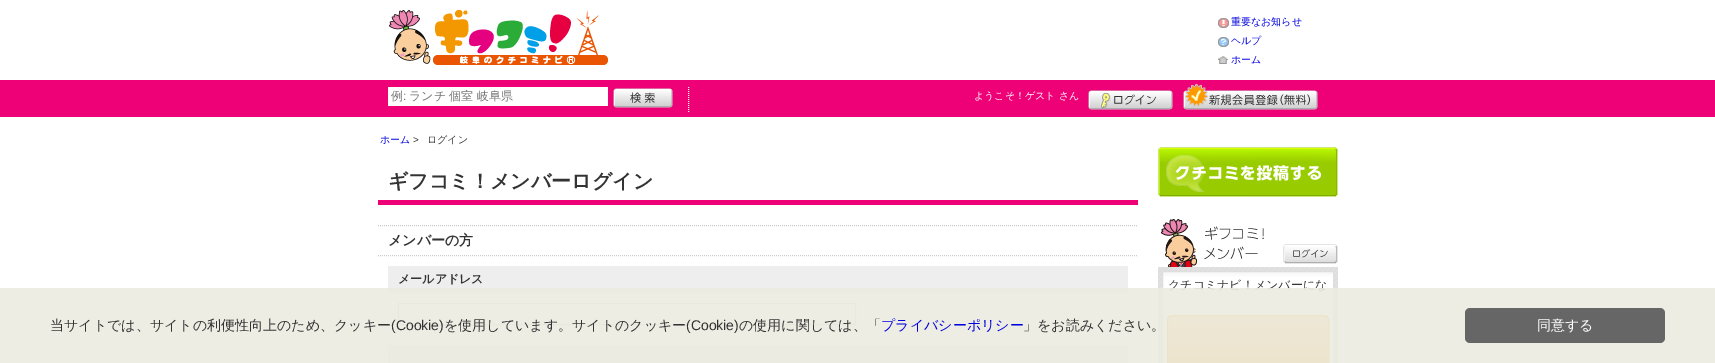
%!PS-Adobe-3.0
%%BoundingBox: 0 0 1715 363
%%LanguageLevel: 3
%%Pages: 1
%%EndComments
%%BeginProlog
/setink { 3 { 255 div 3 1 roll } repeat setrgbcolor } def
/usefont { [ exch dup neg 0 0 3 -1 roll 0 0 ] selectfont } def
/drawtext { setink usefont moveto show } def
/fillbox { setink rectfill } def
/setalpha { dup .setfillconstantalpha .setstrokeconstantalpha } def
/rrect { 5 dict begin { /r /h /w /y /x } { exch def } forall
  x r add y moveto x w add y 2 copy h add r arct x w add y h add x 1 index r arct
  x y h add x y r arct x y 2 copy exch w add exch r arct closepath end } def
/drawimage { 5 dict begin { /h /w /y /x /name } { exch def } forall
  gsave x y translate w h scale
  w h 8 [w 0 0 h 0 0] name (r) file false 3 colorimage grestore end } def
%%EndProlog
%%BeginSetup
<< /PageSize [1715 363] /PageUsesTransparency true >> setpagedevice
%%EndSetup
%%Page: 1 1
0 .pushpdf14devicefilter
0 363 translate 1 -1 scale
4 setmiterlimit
0 0 1715 363 255 255 255 fillbox
(assets/img1.rgb) 389 10 219 55 drawimage
(assets/img2.rgb) 1218 18 11 10 drawimage
(重要なお知らせ) 1231 25 /WenQuanYiZenHei-Medium 10 0 0 222 drawtext
(assets/img3.rgb) 1218 37 11 10 drawimage
(ヘルプ) 1231 44 /WenQuanYiZenHei-Medium 10 0 0 222 drawtext
(assets/img4.rgb) 1218 56 10 8 drawimage
(ホーム) 1231 63 /WenQuanYiZenHei-Medium 10 0 0 222 drawtext
0 80 1715 37 238 0 119 fillbox
255 255 255 setink
[1 1] 0 setdash
688.5 87 moveto 688.5 113 lineto stroke
388 87 220 19 255 255 255 fillbox
(例) 391 100 /WenQuanYiZenHei-Medium 12 117 117 117 drawtext
(:) 403 100 /LiberationSans-Regular 12 117 117 117 drawtext
(ランチ 個室 岐阜県) 409 100 /WenQuanYiZenHei-Medium 12 117 117 117 drawtext
(assets/img5.rgb) 613 88 60 20 drawimage
(ようこそ！ゲスト さん) 974 99 /WenQuanYiZenHei-Medium 10 255 255 255 drawtext
(assets/img6.rgb) 1088 90 85 20 drawimage
(assets/img7.rgb) 1183 84 135 26 drawimage
(ホーム) 380 143 /WenQuanYiZenHei-Medium 10 0 0 222 drawtext
(>) 413 143 /LiberationSans-Regular 10 51 51 51 drawtext
(ログイン) 427 143 /WenQuanYiZenHei-Medium 10 51 51 51 drawtext
378 200 760 5 238 0 119 fillbox
(ギフコミ！メンバーログイン) 388 188 /WenQuanYiZenHei-Bold 20 51 51 51 drawtext
204 204 204 setink
378 225.5 moveto 1138 225.5 lineto stroke
378 255.5 moveto 1138 255.5 lineto stroke
(メンバーの方) 388 245 /WenQuanYiZenHei-Bold 14 51 51 51 drawtext
388 266 740 27 238 238 238 fillbox
(メールアドレス) 398 283 /WenQuanYiZenHei-Bold 12 51 51 51 drawtext
204 204 204 setink
[] 0 setdash
398.5 303.5 457 21 rectstroke
388 345 740 18 238 238 238 fillbox
(assets/img8.rgb) 1158 147 180 50 drawimage
(assets/img9.rgb) 1158 267 180 96 drawimage
(assets/img10.rgb) 1158 217 180 50 drawimage
gsave 1163 272 moveto 1333 272 lineto 1333 363 lineto 1163 363 lineto closepath clip newpath
<< /ShadingType 2 /ColorSpace /DeviceRGB /Coords [1248 272 1248 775] /Extend [true true] /Function << /FunctionType 3 /Domain [0 1] /Functions [<< /FunctionType 2 /Domain [0 1] /C0 [0.961 0.961 0.961] /C1 [1 1 1] /N 1 >> << /FunctionType 2 /Domain [0 1] /C0 [1 1 1] /C1 [1 1 1] /N 1 >>] /Bounds [0.01] /Encode [0 1 0 1] >> >> shfill grestore
222 222 222 setink
1162.5 271.5 171 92 rectstroke
(assets/img11.rgb) 1283 244 55 20 drawimage
(クチコミナビ！メンバーにな) 1168 289 /WenQuanYiZenHei-Medium 12 51 51 51 drawtext
gsave
1167 315 162 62 5 rrect clip newpath
gsave 1167 316 moveto 1329 316 lineto 1329 363 lineto 1167 363 lineto closepath clip newpath
<< /ShadingType 2 /ColorSpace /DeviceRGB /Coords [1248 316 1248 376] /Extend [true true] /Function << /FunctionType 2 /Domain [0 1] /C0 [1 0.784 0.459] /C1 [1 0.6 0] /N 1 >> >> shfill grestore
grestore
255 153 0 setink
1167.5 315.5 161 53 4.5 rrect stroke
0.9 setalpha
0 288 1715 75 235 235 225 fillbox
1 setalpha
(当サイトでは、サイトの利便性向上のため、クッキー) 50 330 /WenQuanYiZenHei-Medium 14 51 51 51 drawtext
(\(Cookie\)) 391 330 /LiberationSans-Regular 14 51 51 51 drawtext
(を使用しています。サイトのクッキー) 444 330 /WenQuanYiZenHei-Medium 14 51 51 51 drawtext
(\(Cookie\)) 686 330 /LiberationSans-Regular 14 51 51 51 drawtext
(の使用に関しては、「) 739 330 /WenQuanYiZenHei-Medium 14 51 51 51 drawtext
(プライバシーポリシー) 881 330 /WenQuanYiZenHei-Medium 14 0 0 222 drawtext
(」をお読みください。) 1023 330 /WenQuanYiZenHei-Medium 14 51 51 51 drawtext
102 102 102 setink
1465 308 200 35 5 rrect fill
(同意する) 1537 330 /WenQuanYiZenHei-Medium 14 255 255 255 drawtext
.poppdf14devicefilter showpage
%%EOF
